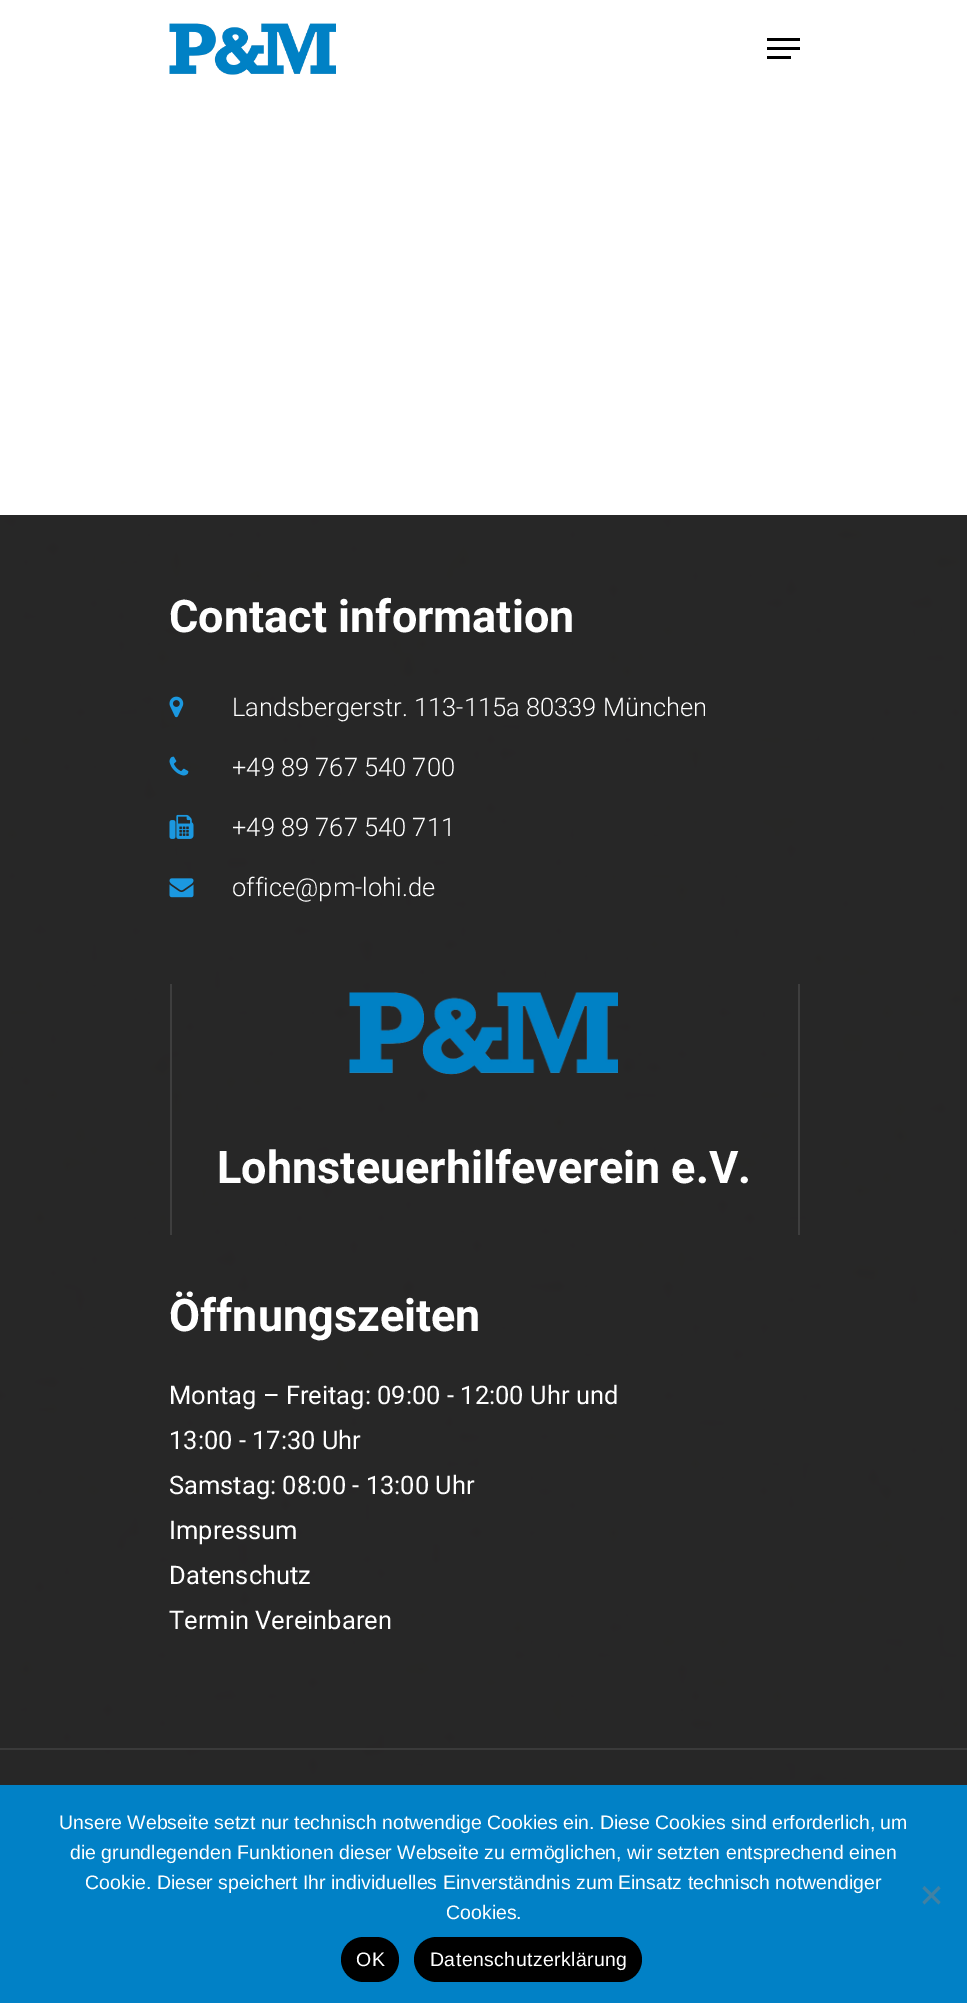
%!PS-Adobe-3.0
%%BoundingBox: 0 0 967 2003
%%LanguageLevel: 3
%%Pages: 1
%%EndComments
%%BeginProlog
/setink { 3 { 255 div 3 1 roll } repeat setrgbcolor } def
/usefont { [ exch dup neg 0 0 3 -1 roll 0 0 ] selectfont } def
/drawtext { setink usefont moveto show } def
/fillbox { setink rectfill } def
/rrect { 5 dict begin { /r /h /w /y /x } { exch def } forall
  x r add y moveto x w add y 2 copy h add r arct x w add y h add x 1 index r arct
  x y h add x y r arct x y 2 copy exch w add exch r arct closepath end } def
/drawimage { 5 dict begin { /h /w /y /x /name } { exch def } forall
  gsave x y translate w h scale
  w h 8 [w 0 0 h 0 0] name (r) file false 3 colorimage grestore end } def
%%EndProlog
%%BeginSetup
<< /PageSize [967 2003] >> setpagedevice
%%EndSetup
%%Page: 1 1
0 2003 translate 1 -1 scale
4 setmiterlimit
0 0 967 2003 255 255 255 fillbox
(assets/img1.rgb) 169 23 167 52 drawimage
767 38 33 3 0 0 0 fillbox
767 56 24 3 0 0 0 fillbox
767 47 33 3 0 0 0 fillbox
(assets/img2.rgb) 0 515 967 1270 drawimage
(Contact information) 169 632 /Roboto-Bold 45 255 255 255 drawtext
(assets/img3.rgb) 169 696 15 22 drawimage
(Landsbergerstr. 113-115a 80339 München) 232 716 /Roboto-Light 25.5 255 255 255 drawtext
(assets/img4.rgb) 169 756 20 20 drawimage
(+49 89 767 540 700) 232 776 /Roboto-Light 25.5 255 255 255 drawtext
(assets/img5.rgb) 169 814 25 25 drawimage
(+49 89 767 540 711) 232 836 /Roboto-Light 25.5 255 255 255 drawtext
(assets/img6.rgb) 169 878 25 20 drawimage
(office@pm-lohi.de) 232 896 /Roboto-Light 25.5 255 255 255 drawtext
798 984 2 251 62 62 62 fillbox
170 984 2 251 62 62 62 fillbox
(assets/img7.rgb) 349 992 269 83 drawimage
(Lohnsteuerhilfeverein e.V.) 217 1183 /Roboto-Bold 45 255 255 255 drawtext
(Öffnungszeiten) 169 1331 /Roboto-Bold 45 255 255 255 drawtext
(Montag – Freitag: 09:00 - 12:00 Uhr und) 169 1404 /Roboto-Regular 25.5 255 255 255 drawtext
(13:00 - 17:30 Uhr) 169 1449 /Roboto-Regular 25.5 255 255 255 drawtext
(Samstag: 08:00 - 13:00 Uhr) 169 1494 /Roboto-Regular 25.5 255 255 255 drawtext
(Impressum) 169 1539 /Roboto-Regular 25.5 255 255 255 drawtext
(Datenschutz) 169 1584 /Roboto-Regular 25.5 255 255 255 drawtext
(Termin Vereinbaren) 169 1629 /Roboto-Regular 25.5 255 255 255 drawtext
0 1748 967 2 58 58 58 fillbox
0 1785 967 218 1 129 198 fillbox
(Unsere Webseite setzt nur technisch notwendige Cookies ein. Diese Cookies sind erforderlich, um) 59 1829 /LiberationSans-Regular 19.5 255 255 255 drawtext
(die grundlegenden Funktionen dieser Webseite zu ermöglichen, wir setzten entsprechend einen) 70 1859 /LiberationSans-Regular 19.5 255 255 255 drawtext
(Cookie. Dieser speichert Ihr individuelles Einverständnis zum Einsatz technisch notwendiger) 85 1889 /LiberationSans-Regular 19.5 255 255 255 drawtext
(Cookies.) 446 1919 /LiberationSans-Regular 19.5 255 255 255 drawtext
65 129 163 setink
938.5 1886 moveto 940.5 1888.5 lineto 924.5 1904.5 lineto 922.5 1902 lineto closepath fill
922.5 1888.5 moveto 924.5 1886 lineto 940.5 1902 lineto 938.5 1904.5 lineto closepath fill
0 0 0 setink
341 1937 58 45 22.5 rrect fill
255 255 255 setink
356 1966 moveto 0.4 0 (OK) ashow
0 0 0 setink
414 1937 228 45 22.5 rrect fill
255 255 255 setink
430 1966 moveto 0.4 0 (Datenschutzerklärung) ashow
showpage
%%EOF
